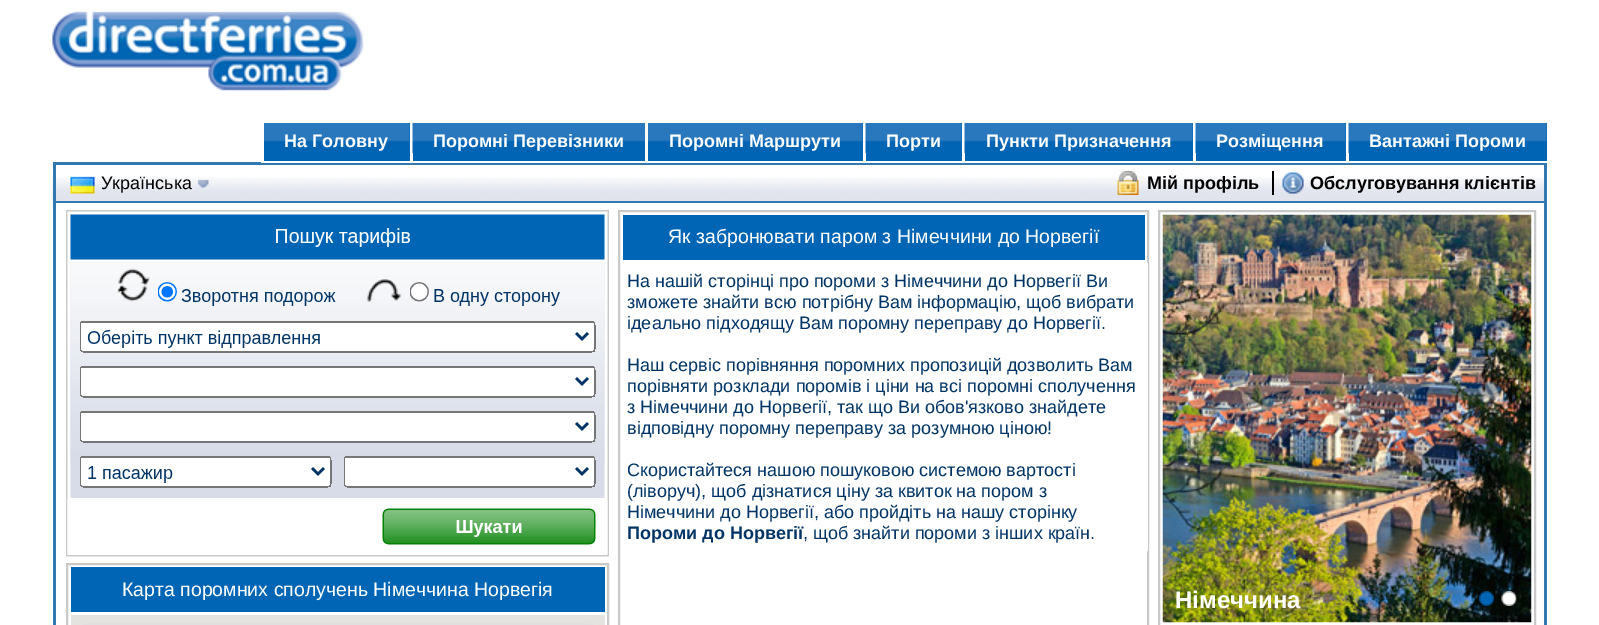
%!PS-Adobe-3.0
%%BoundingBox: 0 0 1599 625
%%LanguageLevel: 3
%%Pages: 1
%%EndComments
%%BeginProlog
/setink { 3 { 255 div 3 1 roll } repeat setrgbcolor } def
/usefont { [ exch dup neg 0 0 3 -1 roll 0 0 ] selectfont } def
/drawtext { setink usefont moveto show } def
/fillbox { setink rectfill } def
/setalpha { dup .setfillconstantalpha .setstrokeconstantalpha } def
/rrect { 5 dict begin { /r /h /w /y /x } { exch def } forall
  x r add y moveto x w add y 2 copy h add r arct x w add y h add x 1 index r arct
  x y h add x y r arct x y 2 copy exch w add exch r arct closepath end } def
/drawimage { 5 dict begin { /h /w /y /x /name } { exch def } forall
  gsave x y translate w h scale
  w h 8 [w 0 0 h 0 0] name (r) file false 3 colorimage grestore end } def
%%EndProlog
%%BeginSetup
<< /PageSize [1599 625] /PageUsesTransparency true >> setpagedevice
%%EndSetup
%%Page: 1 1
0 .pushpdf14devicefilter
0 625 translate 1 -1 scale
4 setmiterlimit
0 0 1599 625 255 255 255 fillbox
(assets/img1.rgb) 52 11 312 80 drawimage
53 162 1494 3 50 121 178 fillbox
261 162 1286 1 255 255 255 fillbox
264 123 146 38 0 100 180 fillbox
(assets/img2.rgb) 264 123 146 19 drawimage
(На Головну) 284 147 /LiberationSans-Bold 18 255 255 255 drawtext
413 153 232 8 0 100 180 fillbox
(assets/img3.rgb) 412 123 233 30 drawimage
(Поромні Перевізники) 433 147 /LiberationSans-Bold 18 255 255 255 drawtext
648 123 215 38 0 100 180 fillbox
(assets/img4.rgb) 648 123 215 19 drawimage
(Поромні Маршрути) 669 147 /LiberationSans-Bold 18 255 255 255 drawtext
866 123 96 38 0 100 180 fillbox
(assets/img5.rgb) 865 123 97 30 drawimage
(Порти) 886 147 /LiberationSans-Bold 18 255 255 255 drawtext
965 123 228 38 0 100 180 fillbox
(assets/img6.rgb) 964 123 229 30 drawimage
(Пункти Призначення) 986 147 /LiberationSans-Bold 18 255 255 255 drawtext
1196 123 150 38 0 100 180 fillbox
(assets/img7.rgb) 1195 123 151 30 drawimage
(Розміщення) 1216 147 /LiberationSans-Bold 18 255 255 255 drawtext
1349 123 198 38 0 100 180 fillbox
(assets/img8.rgb) 1348 123 199 30 drawimage
(Вантажні Пороми) 1369 147 /LiberationSans-Bold 18 255 255 255 drawtext
(assets/img9.rgb) 52 177 1492 24 drawimage
1544 165 3 460 50 121 178 fillbox
53 201 1494 2 50 121 178 fillbox
53 165 3 38 50 121 178 fillbox
(assets/img10.rgb) 70 176 25 18 drawimage
(Українська) 101 189 /LiberationSans-Regular 18 0 0 0 drawtext
(assets/img11.rgb) 197 179 12 9 drawimage
(assets/img12.rgb) 1117 171 22 24 drawimage
(Мій профіль) 1147 189 /LiberationSans-Bold 18 0 0 0 drawtext
1272 171 2 24 0 0 0 fillbox
(assets/img13.rgb) 1282 172 22 22 drawimage
(Обслуговування клієнтів) 1310 189 /LiberationSans-Bold 18 0 0 0 drawtext
53 203 3 422 50 121 178 fillbox
(assets/img14.rgb) 66 210 543 347 drawimage
201 201 201 setink
2 setlinewidth
67 564 541 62 rectstroke
71 567 534 45 0 101 181 fillbox
(Карта поромних сполучень Німеччина Норвегія) 122 596 /LiberationSans-Regular 19.5 255 255 255 drawtext
71 615 534 10 229 227 223 fillbox
255 255 255 setink
78 623 519 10 8 rrect fill
0.12 setalpha
0 0 0 setink
79 624 517 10 7 rrect stroke
1 setalpha
201 201 201 setink
619 211 529 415 rectstroke
623 215 522 45 0 101 181 fillbox
(Як забронювати паром з Німеччини до Норвегії) 668 243 /LiberationSans-Regular 19.5 255 255 255 drawtext
1147 263 1 288 255 255 255 fillbox
(На нашій сторінці про пороми з Німеччини до Норвегії Ви) 627 287 /LiberationSans-Regular 18 0 51 102 drawtext
(зможете знайти всю потрібну Вам інформацію, щоб вибрати) 627 308 /LiberationSans-Regular 18 0 51 102 drawtext
(ідеально підходящу Вам поромну переправу до Норвегії.) 627 329 /LiberationSans-Regular 18 0 51 102 drawtext
(Наш сервіс порівняння поромних пропозицій дозволить Вам) 627 371 /LiberationSans-Regular 18 0 51 102 drawtext
(порівняти розклади поромів і ціни на всі поромні сполучення) 627 392 /LiberationSans-Regular 18 0 51 102 drawtext
(з Німеччини до Норвегії, так що Ви обов'язково знайдете) 627 413 /LiberationSans-Regular 18 0 51 102 drawtext
(відповідну поромну переправу за розумною ціною!) 627 434 /LiberationSans-Regular 18 0 51 102 drawtext
(Скористайтеся нашою пошуковою системою вартості) 627 476 /LiberationSans-Regular 18 0 51 102 drawtext
(\(ліворуч\), щоб дізнатися ціну за квиток на пором з) 627 497 /LiberationSans-Regular 18 0 51 102 drawtext
(Німеччини до Норвегії, або пройдіть на нашу сторінку) 627 518 /LiberationSans-Regular 18 0 51 102 drawtext
(Пороми до Норвегії) 627 539 /LiberationSans-Bold 18 0 51 102 drawtext
(, щоб знайти пороми з інших країн.) 803 539 /LiberationSans-Regular 18 0 51 102 drawtext
201 201 201 setink
1159 211 376 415 rectstroke
(assets/img15.rgb) 1162 214 370 409 drawimage
(Німеччина) 1175 608 /LiberationSans-Bold 24 255 255 255 drawtext
(assets/img16.rgb) 1479 591 15 15 drawimage
(assets/img17.rgb) 1501 591 16 15 drawimage
.poppdf14devicefilter showpage
%%EOF
